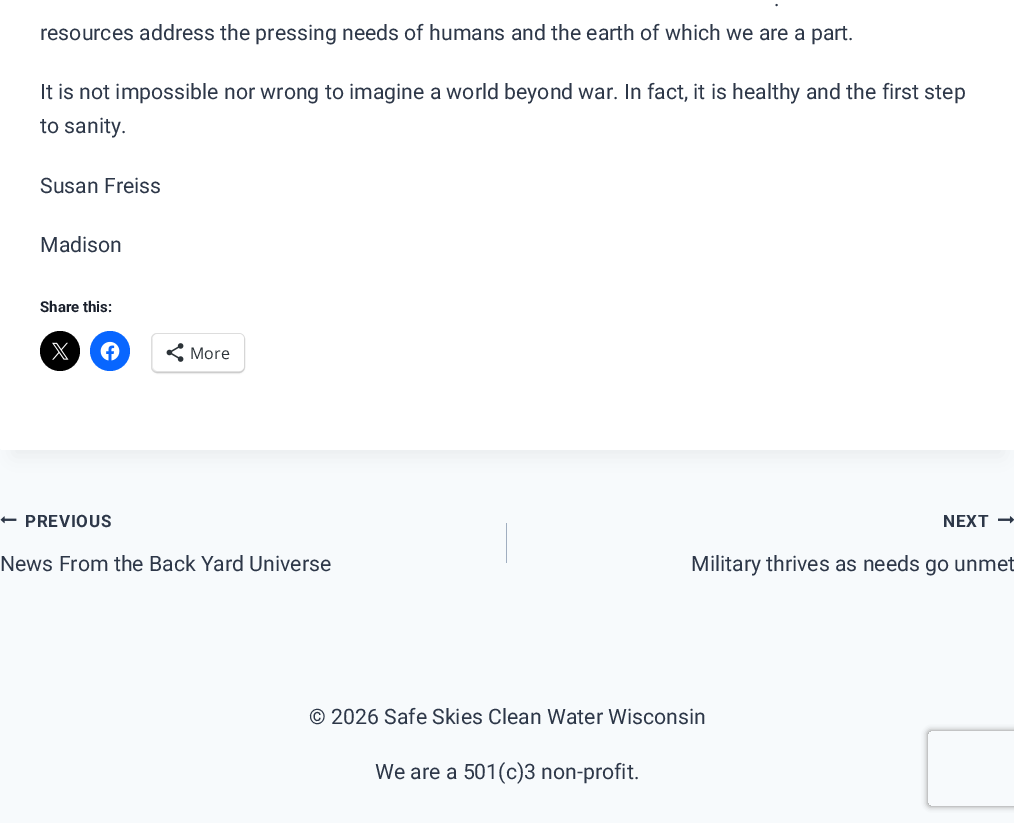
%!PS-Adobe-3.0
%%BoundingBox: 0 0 1014 823
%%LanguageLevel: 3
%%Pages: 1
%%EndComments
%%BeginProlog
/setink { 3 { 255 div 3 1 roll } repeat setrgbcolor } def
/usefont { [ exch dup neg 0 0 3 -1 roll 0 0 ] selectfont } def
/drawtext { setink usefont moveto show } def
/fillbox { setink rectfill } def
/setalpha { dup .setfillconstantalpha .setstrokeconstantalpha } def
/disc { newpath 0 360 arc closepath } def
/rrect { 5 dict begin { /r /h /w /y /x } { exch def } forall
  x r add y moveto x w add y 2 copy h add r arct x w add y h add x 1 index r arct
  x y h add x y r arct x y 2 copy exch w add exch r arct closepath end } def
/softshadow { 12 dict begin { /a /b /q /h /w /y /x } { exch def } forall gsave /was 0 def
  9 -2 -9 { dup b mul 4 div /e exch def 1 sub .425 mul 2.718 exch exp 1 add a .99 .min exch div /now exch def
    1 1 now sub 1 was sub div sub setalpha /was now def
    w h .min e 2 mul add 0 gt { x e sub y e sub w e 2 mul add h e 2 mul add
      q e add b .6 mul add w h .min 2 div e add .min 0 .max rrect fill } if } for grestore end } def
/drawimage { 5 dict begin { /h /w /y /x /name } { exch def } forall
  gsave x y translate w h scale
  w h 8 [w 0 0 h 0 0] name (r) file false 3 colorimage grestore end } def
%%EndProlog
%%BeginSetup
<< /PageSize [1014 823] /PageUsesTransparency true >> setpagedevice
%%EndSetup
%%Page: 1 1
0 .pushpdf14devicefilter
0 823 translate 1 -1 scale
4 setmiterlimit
0 0 1014 823 247 250 252 fillbox
0 0 0 setink
13 -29 990 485 0 9.5 0.05 softshadow
255 255 255 setink
0 -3 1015 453 2.5 rrect fill
(.) 774 6 /Roboto-Regular 21.25 45 55 72 drawtext
(resources address the pressing needs of humans and the earth of which we are a part.) 40 40 /Roboto-Regular 21.25 45 55 72 drawtext
(It is not impossible nor wrong to imagine a world beyond war. In fact, it is healthy and the first step) 40 99 /Roboto-Regular 21.25 45 55 72 drawtext
(to sanity.) 40 133 /Roboto-Regular 21.25 45 55 72 drawtext
(Susan Freiss) 40 193 /Roboto-Regular 21.25 45 55 72 drawtext
(Madison) 40 252 /Roboto-Regular 21.25 45 55 72 drawtext
(Share this:) 40 312 /Roboto-Bold 15 26 32 44 drawtext
0 0 0 setink
60 351 20 disc fill
(assets/img1.rgb) 52 342 17 18 drawimage
8 102 255 setink
110 351 20 disc fill
(assets/img2.rgb) 100 341 20 20 drawimage
224 224 224 setink
151.5 333.5 93 39 5.5 rrect stroke
0 0 0 setink
153 335 91 38 5 1 0.12 softshadow
255 255 255 setink
153 334 91 37 5 rrect fill
(assets/img3.rgb) 166 343 18 19 drawimage
(More) 190 359 /OpenSans-Regular 16 44 51 56 drawtext
(assets/img4.rgb) 0 516 17 8 drawimage
/Roboto-Bold 17 usefont
45 55 72 setink
25 527 moveto 0.75 0 (PREVIOUS) ashow
(News From the Back Yard Universe) 0 571 /Roboto-Regular 21.25 45 55 72 drawtext
506 523 1 40 160 174 192 fillbox
/Roboto-Bold 17 usefont
45 55 72 setink
943 527 moveto 0.75 0 (NEXT) ashow
(assets/img5.rgb) 998 516 16 8 drawimage
(Military thrives as needs go unmet) 691 571 /Roboto-Regular 21.25 45 55 72 drawtext
(© 2026 Safe Skies Clean Water Wisconsin) 309 724 /Roboto-Regular 21.25 45 55 72 drawtext
(We are a 501\(c\)3 non-profit.) 375 779 /Roboto-Regular 21.25 45 55 72 drawtext
gsave
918 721 moveto 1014 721 lineto 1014 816 lineto 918 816 lineto closepath 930.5 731 moveto 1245.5 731 lineto 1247 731 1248 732 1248 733.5 curveto 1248 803.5 lineto 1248 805 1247 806 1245.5 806 curveto 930.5 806 lineto 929 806 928 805 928 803.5 curveto 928 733.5 lineto 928 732 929 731 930.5 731 curveto closepath eoclip newpath
128 128 128 setink
928 731 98 75 2.5 3 1 softshadow
grestore
.poppdf14devicefilter showpage
%%EOF
